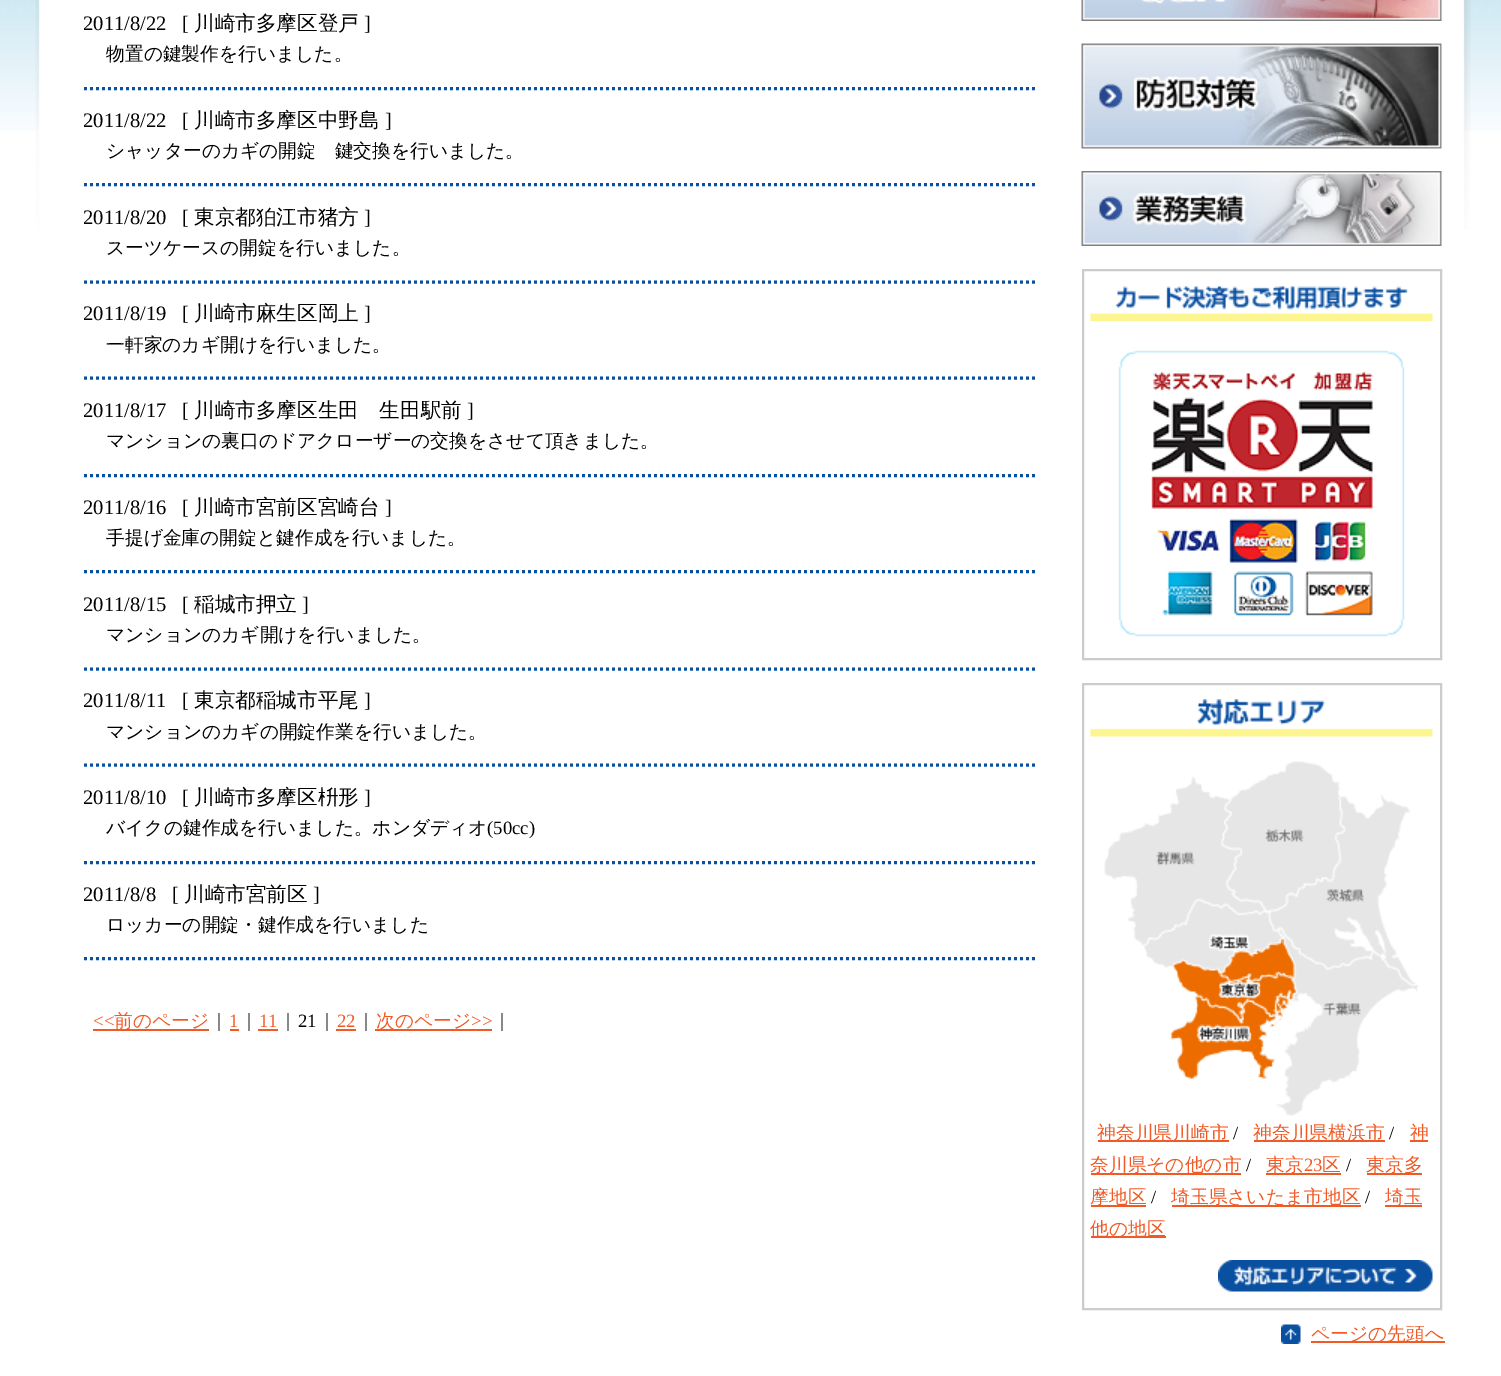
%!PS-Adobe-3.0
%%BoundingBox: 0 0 1501 1376
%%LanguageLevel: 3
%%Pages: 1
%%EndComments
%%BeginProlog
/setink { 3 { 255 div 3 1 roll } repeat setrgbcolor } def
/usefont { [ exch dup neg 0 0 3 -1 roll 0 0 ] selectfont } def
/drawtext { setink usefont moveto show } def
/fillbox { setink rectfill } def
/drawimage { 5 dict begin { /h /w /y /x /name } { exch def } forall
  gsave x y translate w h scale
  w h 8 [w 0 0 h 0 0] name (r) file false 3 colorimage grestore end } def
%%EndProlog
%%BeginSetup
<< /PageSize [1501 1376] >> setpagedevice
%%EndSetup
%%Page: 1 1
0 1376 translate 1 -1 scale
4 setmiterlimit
0 0 1501 1376 255 255 255 fillbox
(assets/img1.rgb) 0 0 1501 131 drawimage
(assets/img2.rgb) 35 0 1436 230 drawimage
(2011/8/22) 83 30 /LiberationSerif-Regular 20.6 0 0 0 drawtext
([) 182 30 /LiberationSerif-Regular 20.6 0 0 0 drawtext
(川崎市多摩区登戸) 194 30 /WenQuanYiZenHei-Medium 20.6 0 0 0 drawtext
(]) 364 30 /LiberationSerif-Regular 20.6 0 0 0 drawtext
10 80 161 setink
3 setlinewidth
[3 3] 0 setdash
84 88.5 moveto 1036.5 88.5 lineto stroke
(物置の鍵製作を行いました。) 106 60 /WenQuanYiZenHei-Medium 18.75 0 0 0 drawtext
(2011/8/22) 83 127 /LiberationSerif-Regular 20.6 0 0 0 drawtext
([) 182 127 /LiberationSerif-Regular 20.6 0 0 0 drawtext
(川崎市多摩区中野島) 194 127 /WenQuanYiZenHei-Medium 20.6 0 0 0 drawtext
(]) 385 127 /LiberationSerif-Regular 20.6 0 0 0 drawtext
10 80 161 setink
84 184.5 moveto 1036.5 184.5 lineto stroke
(シャッターのカギの開錠　鍵交換を行いました。) 106 157 /WenQuanYiZenHei-Medium 18.75 0 0 0 drawtext
(2011/8/20) 83 224 /LiberationSerif-Regular 20.6 0 0 0 drawtext
([) 182 224 /LiberationSerif-Regular 20.6 0 0 0 drawtext
(東京都狛江市猪方) 194 224 /WenQuanYiZenHei-Medium 20.6 0 0 0 drawtext
(]) 364 224 /LiberationSerif-Regular 20.6 0 0 0 drawtext
10 80 161 setink
84 282 moveto 1036.5 282 lineto stroke
(スーツケースの開錠を行いました。) 106 254 /WenQuanYiZenHei-Medium 18.75 0 0 0 drawtext
(2011/8/19) 83 320 /LiberationSerif-Regular 20.6 0 0 0 drawtext
([) 182 320 /LiberationSerif-Regular 20.6 0 0 0 drawtext
(川崎市麻生区岡上) 194 320 /WenQuanYiZenHei-Medium 20.6 0 0 0 drawtext
(]) 364 320 /LiberationSerif-Regular 20.6 0 0 0 drawtext
10 80 161 setink
84 378 moveto 1036.5 378 lineto stroke
(一軒家のカギ開けを行いました。) 106 351 /WenQuanYiZenHei-Medium 18.75 0 0 0 drawtext
(2011/8/17) 83 417 /LiberationSerif-Regular 20.6 0 0 0 drawtext
([) 182 417 /LiberationSerif-Regular 20.6 0 0 0 drawtext
(川崎市多摩区生田　生田駅前) 194 417 /WenQuanYiZenHei-Medium 20.6 0 0 0 drawtext
(]) 467 417 /LiberationSerif-Regular 20.6 0 0 0 drawtext
10 80 161 setink
84 475.5 moveto 1036.5 475.5 lineto stroke
(マンションの裏口のドアクローザーの交換をさせて頂きました。) 106 447 /WenQuanYiZenHei-Medium 18.75 0 0 0 drawtext
(2011/8/16) 83 514 /LiberationSerif-Regular 20.6 0 0 0 drawtext
([) 182 514 /LiberationSerif-Regular 20.6 0 0 0 drawtext
(川崎市宮前区宮崎台) 194 514 /WenQuanYiZenHei-Medium 20.6 0 0 0 drawtext
(]) 385 514 /LiberationSerif-Regular 20.6 0 0 0 drawtext
10 80 161 setink
84 571.5 moveto 1036.5 571.5 lineto stroke
(手提げ金庫の開錠と鍵作成を行いました。) 106 544 /WenQuanYiZenHei-Medium 18.75 0 0 0 drawtext
(2011/8/15) 83 611 /LiberationSerif-Regular 20.6 0 0 0 drawtext
([) 182 611 /LiberationSerif-Regular 20.6 0 0 0 drawtext
(稲城市押立) 194 611 /WenQuanYiZenHei-Medium 20.6 0 0 0 drawtext
(]) 302 611 /LiberationSerif-Regular 20.6 0 0 0 drawtext
10 80 161 setink
84 669 moveto 1036.5 669 lineto stroke
(マンションのカギ開けを行いました。) 106 641 /WenQuanYiZenHei-Medium 18.75 0 0 0 drawtext
(2011/8/11) 83 707 /LiberationSerif-Regular 20.6 0 0 0 drawtext
([) 182 707 /LiberationSerif-Regular 20.6 0 0 0 drawtext
(東京都稲城市平尾) 194 707 /WenQuanYiZenHei-Medium 20.6 0 0 0 drawtext
(]) 364 707 /LiberationSerif-Regular 20.6 0 0 0 drawtext
10 80 161 setink
84 765 moveto 1036.5 765 lineto stroke
(マンションのカギの開錠作業を行いました。) 106 738 /WenQuanYiZenHei-Medium 18.75 0 0 0 drawtext
(2011/8/10) 83 804 /LiberationSerif-Regular 20.6 0 0 0 drawtext
([) 182 804 /LiberationSerif-Regular 20.6 0 0 0 drawtext
(川崎市多摩区枡形) 194 804 /WenQuanYiZenHei-Medium 20.6 0 0 0 drawtext
(]) 364 804 /LiberationSerif-Regular 20.6 0 0 0 drawtext
10 80 161 setink
84 862.5 moveto 1036.5 862.5 lineto stroke
(バイクの鍵作成を行いました。ホンダディオ) 106 834 /WenQuanYiZenHei-Medium 18.75 0 0 0 drawtext
(\(50cc\)) 487 834 /LiberationSerif-Regular 18.75 0 0 0 drawtext
(2011/8/8) 83 901 /LiberationSerif-Regular 20.6 0 0 0 drawtext
([) 172 901 /LiberationSerif-Regular 20.6 0 0 0 drawtext
(川崎市宮前区) 184 901 /WenQuanYiZenHei-Medium 20.6 0 0 0 drawtext
(]) 313 901 /LiberationSerif-Regular 20.6 0 0 0 drawtext
10 80 161 setink
84 958.5 moveto 1036.5 958.5 lineto stroke
(ロッカーの開錠・鍵作成を行いました) 106 931 /WenQuanYiZenHei-Medium 18.75 0 0 0 drawtext
218 1013 2 18 136 136 136 fillbox
(<<) 93 1027 /LiberationSerif-Regular 18.75 241 90 36 drawtext
93 1029 116 2 241 90 36 fillbox
(前のページ) 114 1027 /WenQuanYiZenHei-Medium 18.75 241 90 36 drawtext
248 1013 2 18 136 136 136 fillbox
(1) 229 1027 /LiberationSerif-Regular 18.75 241 90 36 drawtext
230 1029 9 2 241 90 36 fillbox
287 1013 2 18 136 136 136 fillbox
(11) 259 1027 /LiberationSerif-Regular 18.75 241 90 36 drawtext
258 1029 20 2 241 90 36 fillbox
326 1013 2 18 136 136 136 fillbox
(21) 298 1027 /LiberationSerif-Regular 18.75 0 0 0 drawtext
365 1013 2 18 136 136 136 fillbox
(22) 337 1027 /LiberationSerif-Regular 18.75 241 90 36 drawtext
336 1029 20 2 241 90 36 fillbox
501 1013 2 18 136 136 136 fillbox
375 1029 117 2 241 90 36 fillbox
(次のページ) 376 1027 /WenQuanYiZenHei-Medium 18.75 241 90 36 drawtext
(>>) 471 1027 /LiberationSerif-Regular 18.75 241 90 36 drawtext
(assets/img3.rgb) 1081 0 361 21 drawimage
(assets/img4.rgb) 1081 43 361 106 drawimage
(assets/img5.rgb) 1081 171 361 75 drawimage
204 204 204 setink
2 setlinewidth
[] 0 setdash
1083 270 358 389 rectstroke
(assets/img6.rgb) 1090 286 343 35 drawimage
(assets/img7.rgb) 1118 350 287 287 drawimage
1083 684 358 625 rectstroke
(assets/img8.rgb) 1090 699 343 38 drawimage
(assets/img9.rgb) 1104 761 314 355 drawimage
1098 1140 131 2 241 90 36 fillbox
(神奈川県川崎市) 1097 1139 /WenQuanYiZenHei-Medium 18.75 241 90 36 drawtext
(/) 1233 1139 /LiberationSerif-Regular 18.75 0 0 0 drawtext
1254 1140 131 2 241 90 36 fillbox
(神奈川県横浜市) 1253 1139 /WenQuanYiZenHei-Medium 18.75 241 90 36 drawtext
(/) 1389 1139 /LiberationSerif-Regular 18.75 0 0 0 drawtext
1410 1140 18 2 241 90 36 fillbox
(神) 1410 1139 /WenQuanYiZenHei-Medium 18.75 241 90 36 drawtext
1091 1173 150 2 241 90 36 fillbox
(奈川県その他の市) 1090 1171 /WenQuanYiZenHei-Medium 18.75 241 90 36 drawtext
(/) 1246 1171 /LiberationSerif-Regular 18.75 0 0 0 drawtext
1266 1173 75 2 241 90 36 fillbox
(東京) 1266 1171 /WenQuanYiZenHei-Medium 18.75 241 90 36 drawtext
(23) 1304 1171 /LiberationSerif-Regular 18.75 241 90 36 drawtext
(区) 1322 1171 /WenQuanYiZenHei-Medium 18.75 241 90 36 drawtext
(/) 1346 1171 /LiberationSerif-Regular 18.75 0 0 0 drawtext
1367 1173 55 2 241 90 36 fillbox
(東京多) 1366 1171 /WenQuanYiZenHei-Medium 18.75 241 90 36 drawtext
1091 1205 55 2 241 90 36 fillbox
(摩地区) 1090 1203 /WenQuanYiZenHei-Medium 18.75 241 90 36 drawtext
(/) 1151 1203 /LiberationSerif-Regular 18.75 0 0 0 drawtext
1172 1205 189 2 241 90 36 fillbox
(埼玉県さいたま市地区) 1171 1203 /WenQuanYiZenHei-Medium 18.75 241 90 36 drawtext
(/) 1365 1203 /LiberationSerif-Regular 18.75 0 0 0 drawtext
1385 1205 37 2 241 90 36 fillbox
(埼玉) 1385 1203 /WenQuanYiZenHei-Medium 18.75 241 90 36 drawtext
1091 1236 75 2 241 90 36 fillbox
(他の地区) 1090 1235 /WenQuanYiZenHei-Medium 18.75 241 90 36 drawtext
(assets/img10.rgb) 1218 1260 215 32 drawimage
(assets/img11.rgb) 1281 1324 20 20 drawimage
1311 1341 134 2 241 90 36 fillbox
(ページの先頭へ) 1311 1340 /WenQuanYiZenHei-Medium 18.75 241 90 36 drawtext
showpage
%%EOF
